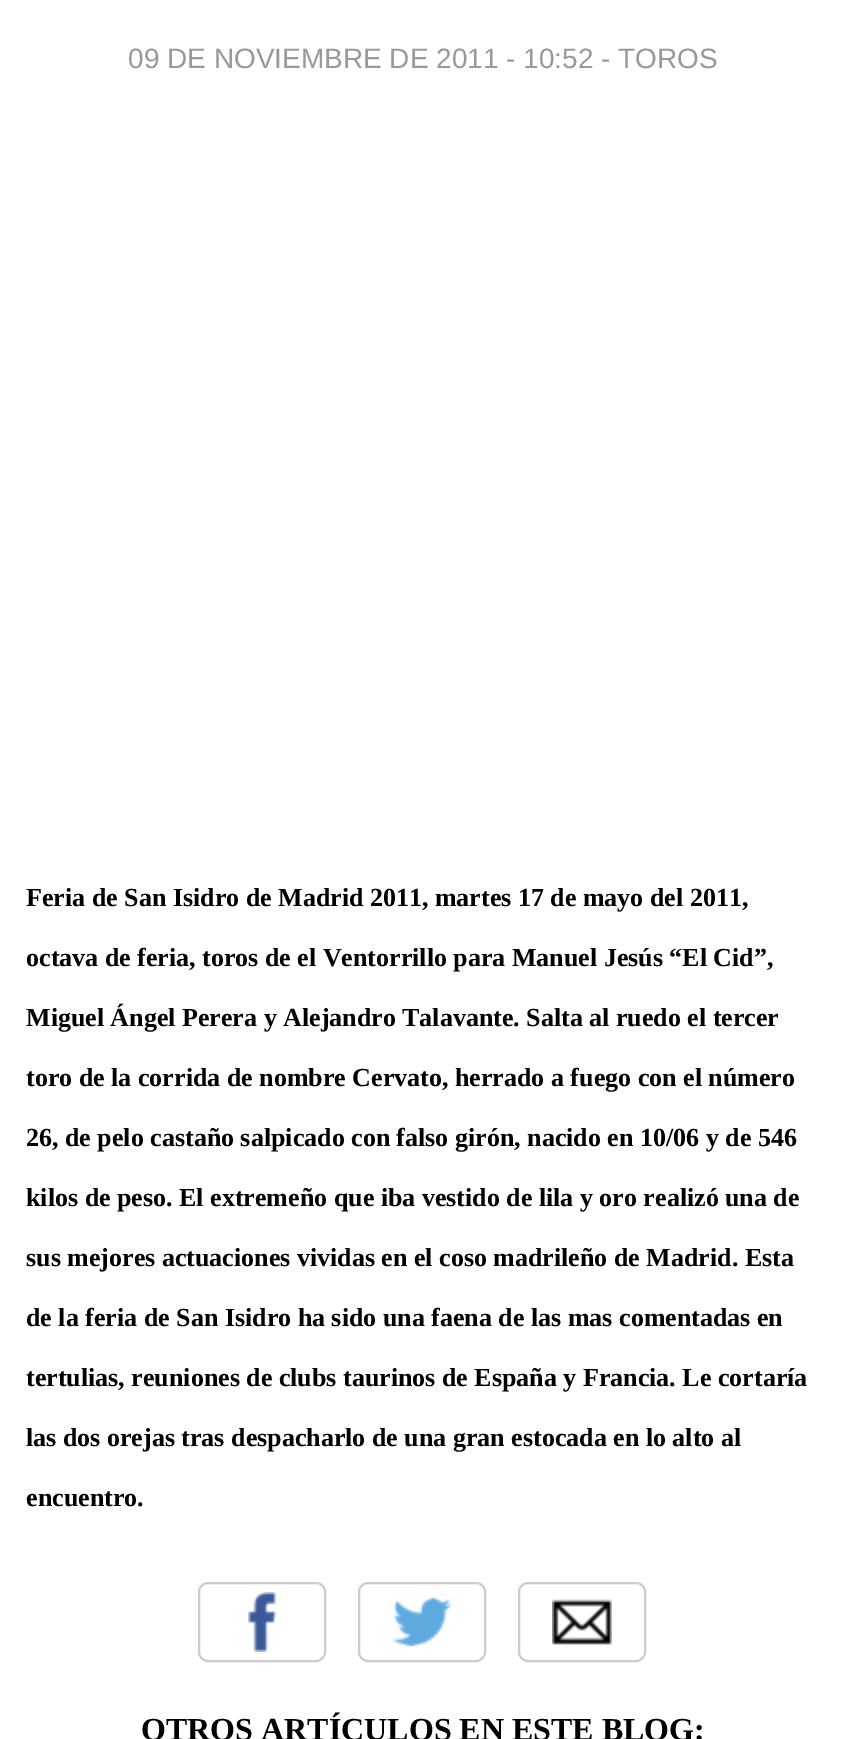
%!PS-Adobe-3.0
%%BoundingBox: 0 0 846 1739
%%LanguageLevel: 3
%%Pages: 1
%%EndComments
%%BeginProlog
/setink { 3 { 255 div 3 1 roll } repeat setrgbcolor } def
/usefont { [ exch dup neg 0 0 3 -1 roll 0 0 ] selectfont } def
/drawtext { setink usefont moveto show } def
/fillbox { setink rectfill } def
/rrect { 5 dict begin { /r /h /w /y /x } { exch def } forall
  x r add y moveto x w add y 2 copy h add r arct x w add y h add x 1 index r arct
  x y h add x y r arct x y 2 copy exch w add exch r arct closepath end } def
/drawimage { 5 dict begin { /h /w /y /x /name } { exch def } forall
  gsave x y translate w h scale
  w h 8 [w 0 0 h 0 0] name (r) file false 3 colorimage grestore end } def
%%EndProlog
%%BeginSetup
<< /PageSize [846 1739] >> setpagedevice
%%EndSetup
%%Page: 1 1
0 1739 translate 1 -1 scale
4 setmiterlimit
0 0 846 1739 255 255 255 fillbox
(09 DE NOVIEMBRE DE 2011 - 10:52 - TOROS) 128 68 /LiberationSans-Regular 28 153 153 153 drawtext
(Feria de San Isidro de Madrid 2011, martes 17 de mayo del 2011,) 26 906 /LiberationSerif-Bold 26 0 0 0 drawtext
(octava de feria, toros de el Ventorrillo para Manuel Jesús “El Cid”,) 26 966 /LiberationSerif-Bold 26 0 0 0 drawtext
(Miguel Ángel Perera y Alejandro Talavante. Salta al ruedo el tercer) 26 1026 /LiberationSerif-Bold 26 0 0 0 drawtext
(toro de la corrida de nombre Cervato, herrado a fuego con el número) 26 1086 /LiberationSerif-Bold 26 0 0 0 drawtext
(26, de pelo castaño salpicado con falso girón, nacido en 10/06 y de 546) 26 1146 /LiberationSerif-Bold 26 0 0 0 drawtext
(kilos de peso. El extremeño que iba vestido de lila y oro realizó una de) 26 1206 /LiberationSerif-Bold 26 0 0 0 drawtext
(sus mejores actuaciones vividas en el coso madrileño de Madrid. Esta) 26 1266 /LiberationSerif-Bold 26 0 0 0 drawtext
(de la feria de San Isidro ha sido una faena de las mas comentadas en) 26 1326 /LiberationSerif-Bold 26 0 0 0 drawtext
(tertulias, reuniones de clubs taurinos de España y Francia. Le cortaría) 26 1386 /LiberationSerif-Bold 26 0 0 0 drawtext
(las dos orejas tras despacharlo de una gran estocada en lo alto al) 26 1446 /LiberationSerif-Bold 26 0 0 0 drawtext
(encuentro.) 26 1506 /LiberationSerif-Bold 26 0 0 0 drawtext
(assets/img1.rgb) 248 1592 28 60 drawimage
204 204 204 setink
2 setlinewidth
199 1583 126 78 9 rrect stroke
(assets/img2.rgb) 392 1597 60 50 drawimage
359 1583 126 78 9 rrect stroke
(assets/img3.rgb) 552 1599 60 46 drawimage
519 1583 126 78 9 rrect stroke
(OTROS ARTÍCULOS EN ESTE BLOG:) 141 1740 /LiberationSerif-Bold 32 0 0 0 drawtext
showpage
%%EOF
